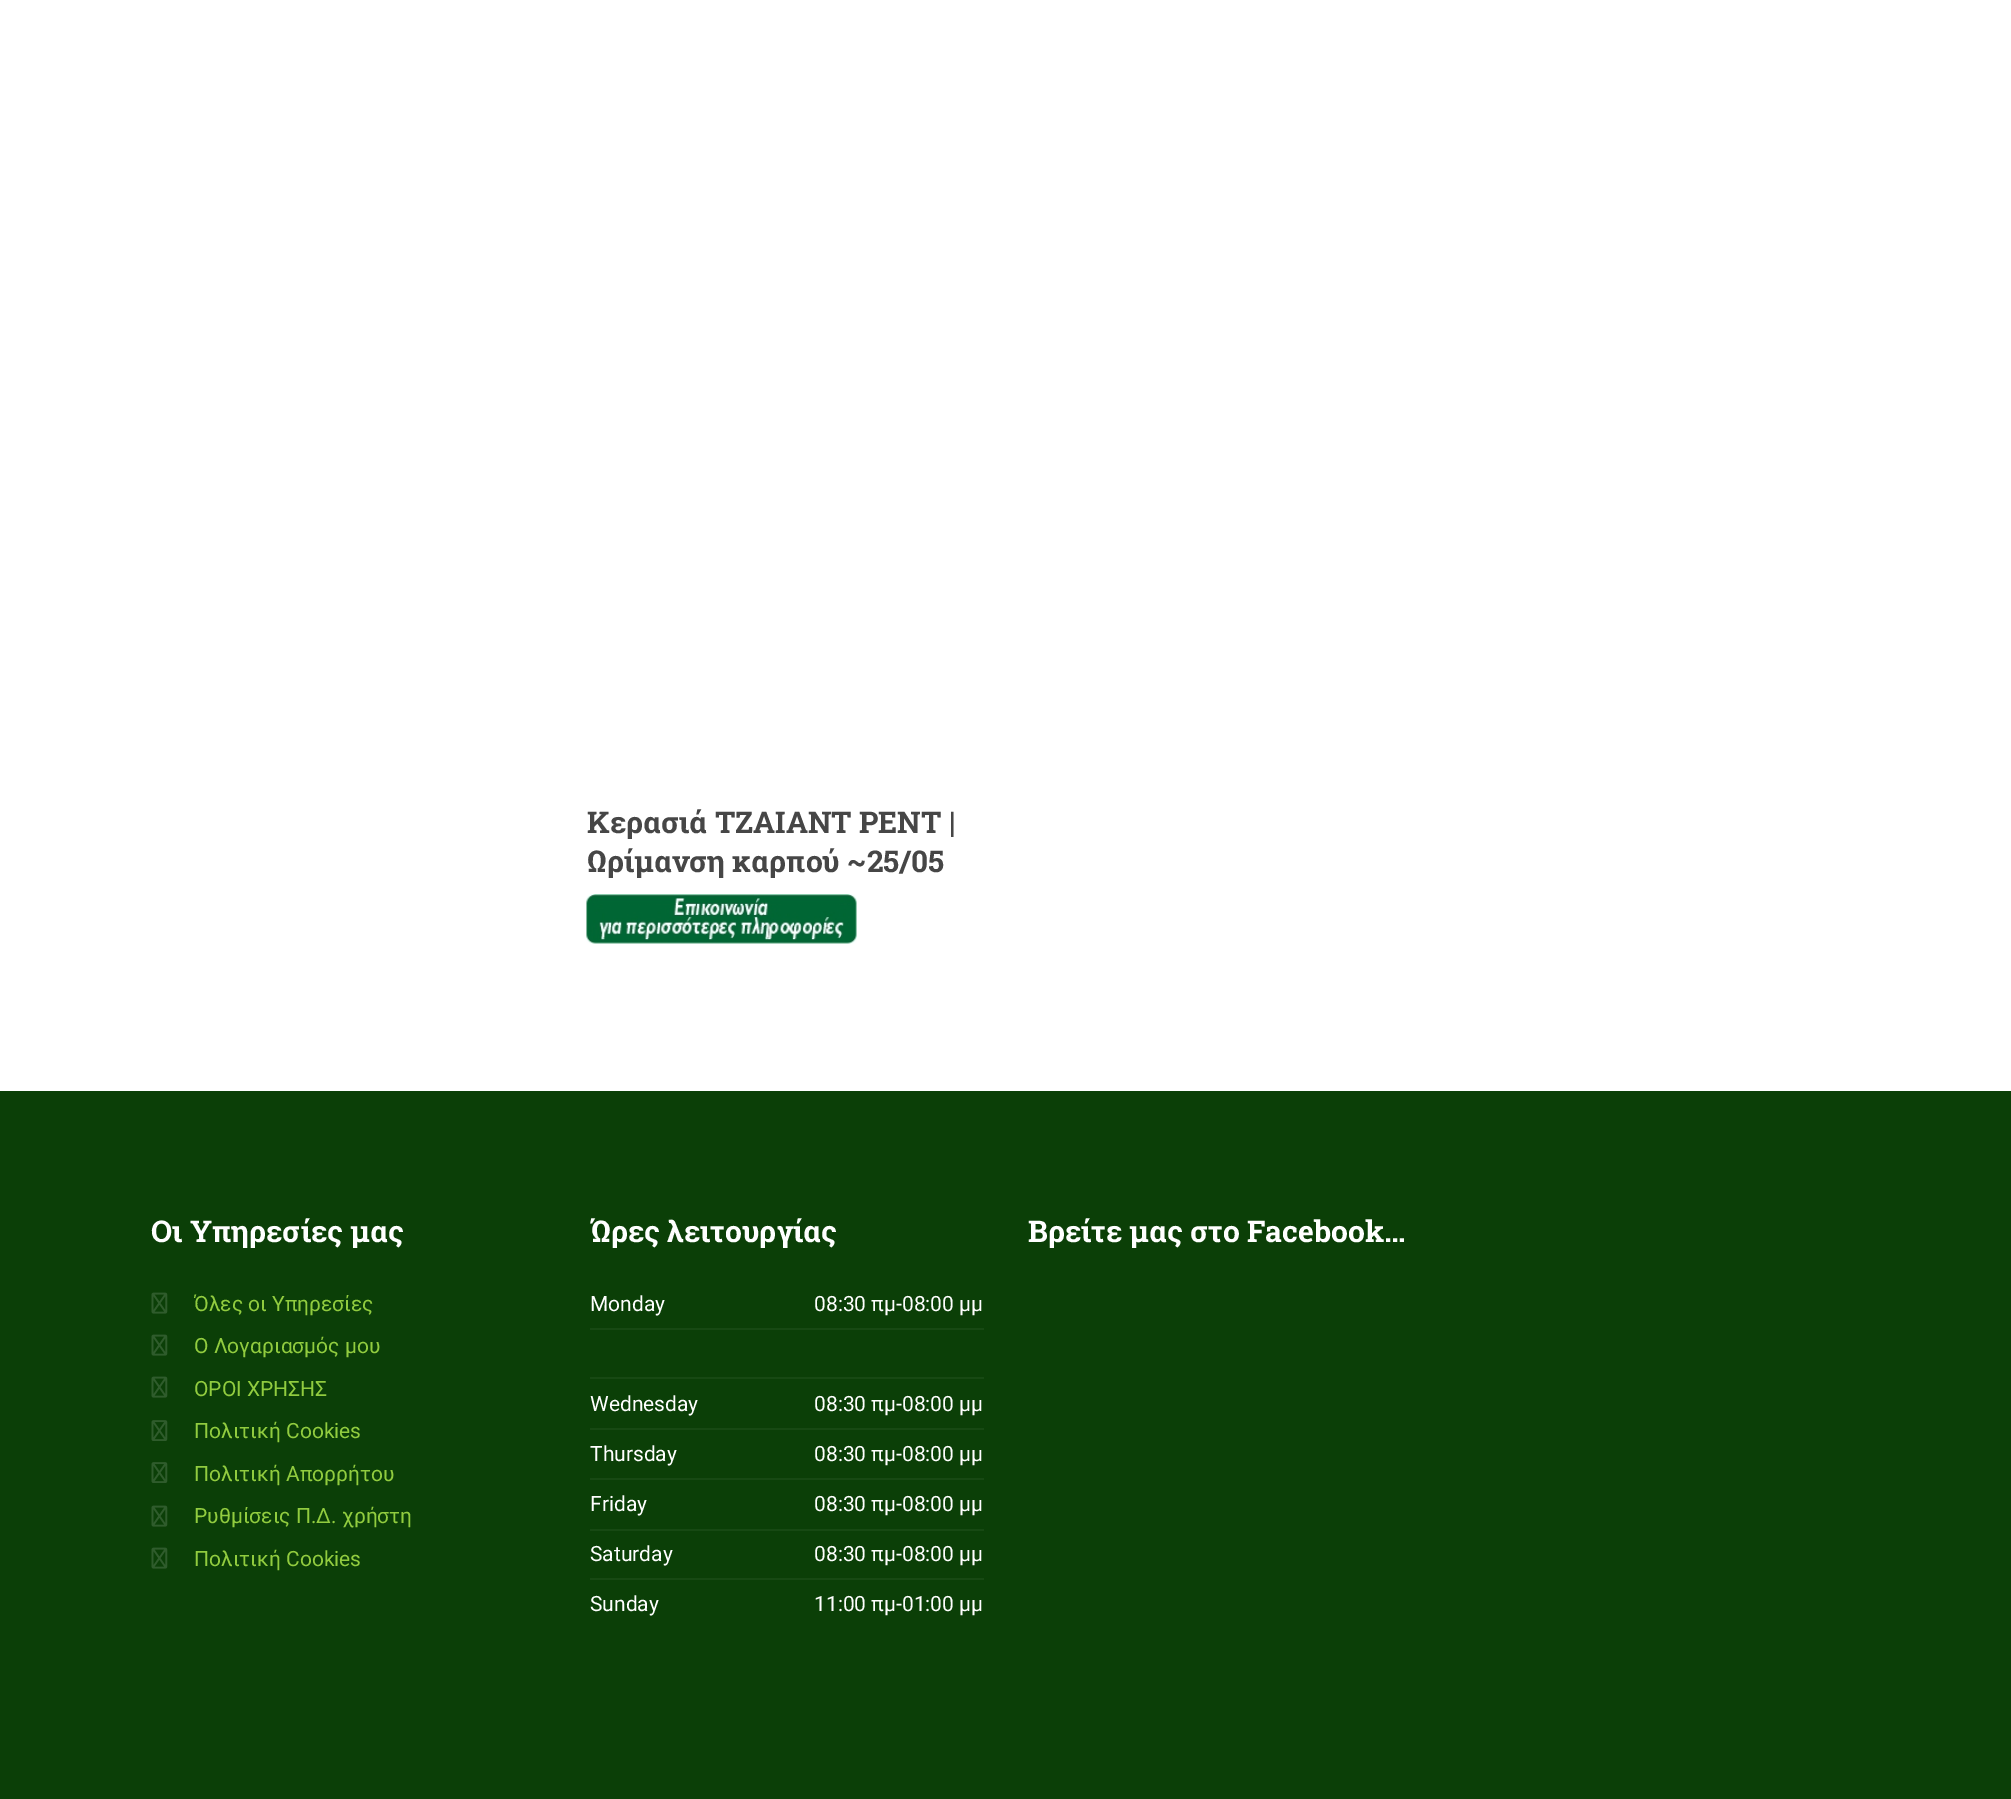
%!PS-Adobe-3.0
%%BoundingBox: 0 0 2011 1799
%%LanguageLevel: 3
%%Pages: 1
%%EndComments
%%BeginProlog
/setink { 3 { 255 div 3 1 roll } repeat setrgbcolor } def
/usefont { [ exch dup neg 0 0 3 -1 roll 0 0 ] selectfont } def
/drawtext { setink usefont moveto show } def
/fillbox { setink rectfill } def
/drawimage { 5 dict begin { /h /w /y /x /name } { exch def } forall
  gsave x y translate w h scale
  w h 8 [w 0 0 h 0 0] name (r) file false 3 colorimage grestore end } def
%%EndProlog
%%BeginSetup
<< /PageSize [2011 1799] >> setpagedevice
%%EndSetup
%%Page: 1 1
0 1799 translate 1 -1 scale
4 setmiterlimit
0 0 2011 1799 255 255 255 fillbox
(Κερασιά ΤΖAΙΑΝΤ ΡENT |) 587 833 /RobotoSlab-Bold 30 70 70 70 drawtext
(Ωρίμανση καρπού ~25/05) 587 872 /RobotoSlab-Bold 30 70 70 70 drawtext
(assets/img1.rgb) 586 894 271 50 drawimage
0 1091 2011 708 11 63 7 fillbox
(Οι Υπηρεσίες μας) 151 1242 /RobotoSlab-Bold 30 255 255 255 drawtext
(assets/img2.rgb) 151 1292 17 22 drawimage
(Όλες οι Υπηρεσίες) 194 1311 /Roboto-Regular 21 145 204 63 drawtext
(assets/img2.rgb) 151 1334 17 22 drawimage
(Ο Λογαριασμός μου) 194 1353 /Roboto-Regular 21 145 204 63 drawtext
(assets/img2.rgb) 151 1376 17 22 drawimage
(ΟΡΟΙ ΧΡΗΣΗΣ) 194 1396 /Roboto-Regular 21 145 204 63 drawtext
(assets/img3.rgb) 151 1420 17 21 drawimage
(Πολιτική Cookies) 194 1438 /Roboto-Regular 21 145 204 63 drawtext
(assets/img3.rgb) 151 1462 17 21 drawimage
(Πολιτική Απορρήτου) 194 1481 /Roboto-Regular 21 145 204 63 drawtext
(assets/img2.rgb) 151 1505 17 22 drawimage
(Ρυθμίσεις Π.Δ. χρήστη) 194 1523 /Roboto-Regular 21 145 204 63 drawtext
(assets/img2.rgb) 151 1547 17 22 drawimage
(Πολιτική Cookies) 194 1566 /Roboto-Regular 21 145 204 63 drawtext
(Ώρες λειτουργίας) 590 1242 /RobotoSlab-Bold 30 255 255 255 drawtext
590 1328 394 2 23 73 19 fillbox
(Monday) 590 1311 /Roboto-Regular 21 255 255 255 drawtext
(08:30 πμ-08:00 μμ) 814 1311 /Roboto-Regular 21 255 255 255 drawtext
590 1377 394 2 23 73 19 fillbox
590 1428 394 2 23 73 19 fillbox
(Wednesday) 590 1411 /Roboto-Regular 21 255 255 255 drawtext
(08:30 πμ-08:00 μμ) 814 1411 /Roboto-Regular 21 255 255 255 drawtext
590 1478 394 2 23 73 19 fillbox
(Thursday) 590 1461 /Roboto-Regular 21 255 255 255 drawtext
(08:30 πμ-08:00 μμ) 814 1461 /Roboto-Regular 21 255 255 255 drawtext
590 1529 394 2 23 73 19 fillbox
(Friday) 590 1511 /Roboto-Regular 21 255 255 255 drawtext
(08:30 πμ-08:00 μμ) 814 1511 /Roboto-Regular 21 255 255 255 drawtext
590 1578 394 2 23 73 19 fillbox
(Saturday) 590 1561 /Roboto-Regular 21 255 255 255 drawtext
(08:30 πμ-08:00 μμ) 814 1561 /Roboto-Regular 21 255 255 255 drawtext
(Sunday) 590 1611 /Roboto-Regular 21 255 255 255 drawtext
(11:00 πμ-01:00 μμ) 814 1611 /Roboto-Regular 21 255 255 255 drawtext
(Βρείτε μας στο Facebook…) 1028 1242 /RobotoSlab-Bold 30 255 255 255 drawtext
showpage
%%EOF
